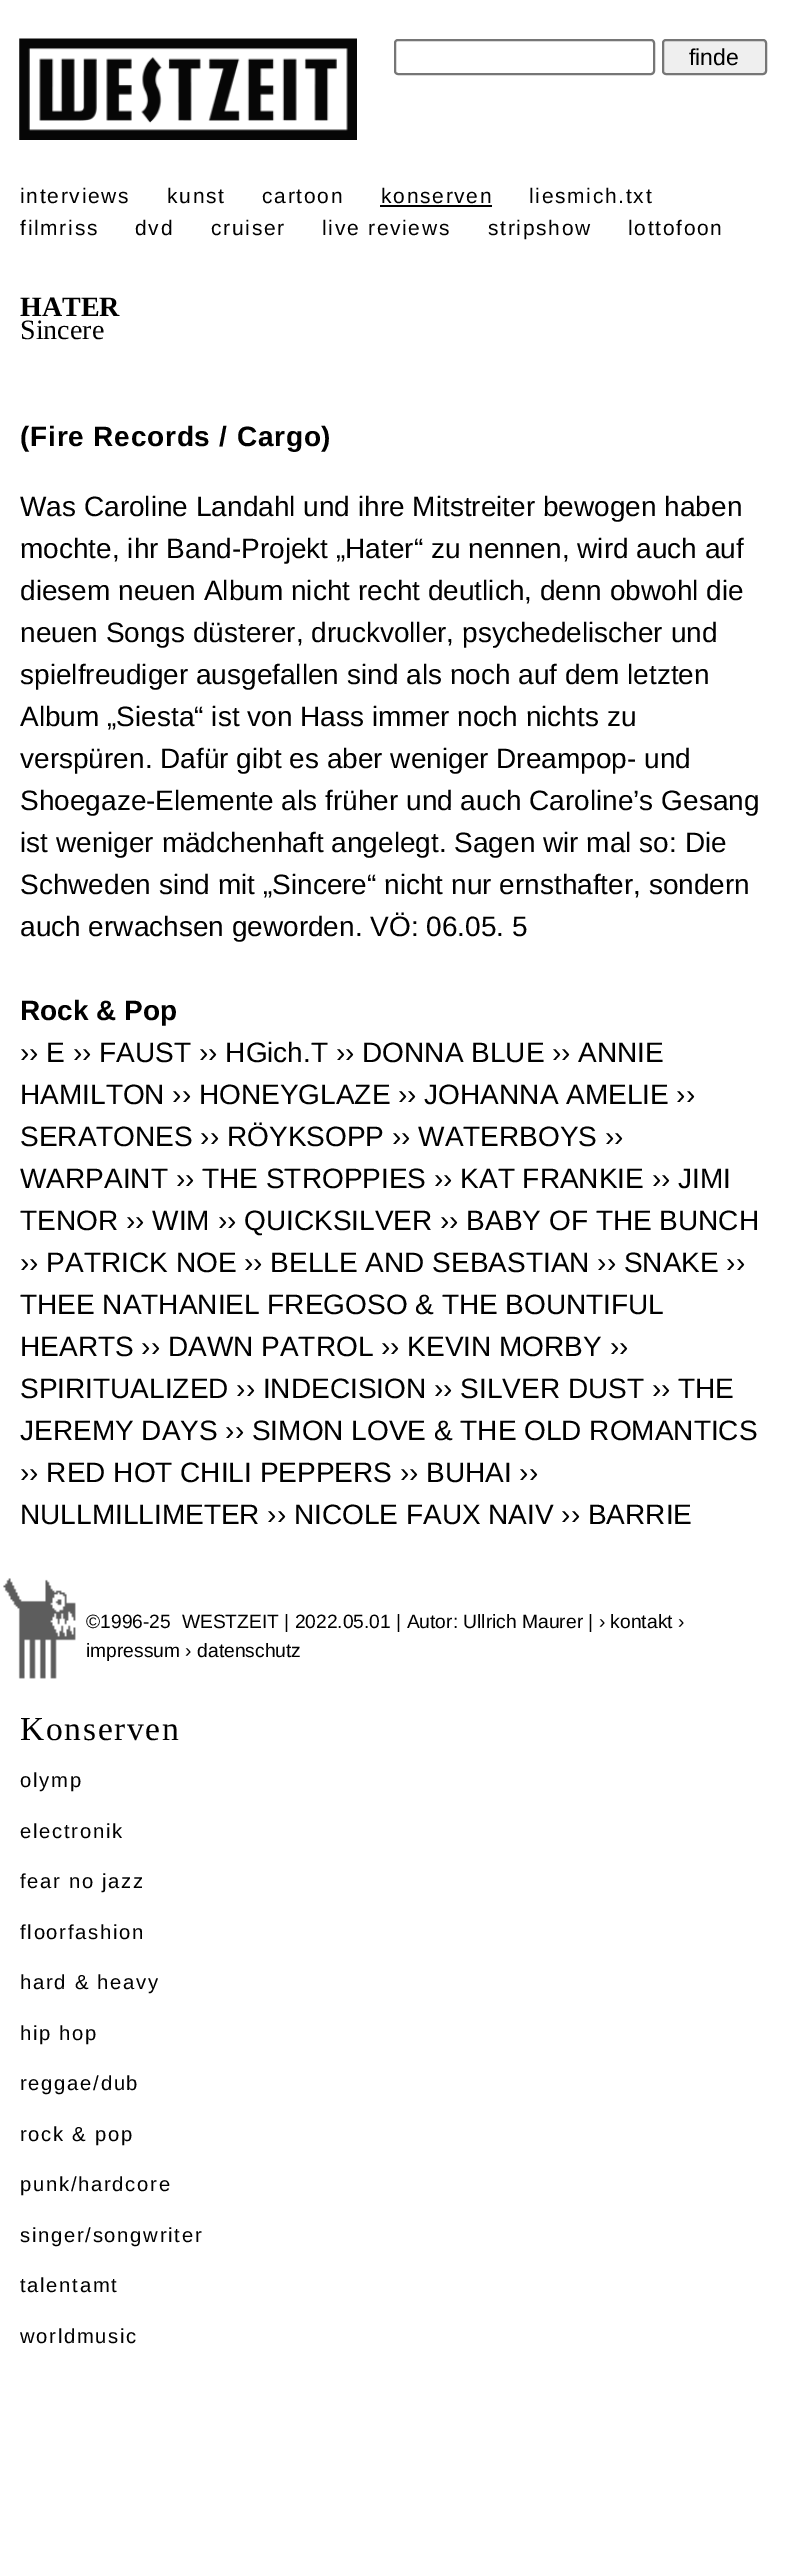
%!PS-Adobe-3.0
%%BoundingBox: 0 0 786 2570
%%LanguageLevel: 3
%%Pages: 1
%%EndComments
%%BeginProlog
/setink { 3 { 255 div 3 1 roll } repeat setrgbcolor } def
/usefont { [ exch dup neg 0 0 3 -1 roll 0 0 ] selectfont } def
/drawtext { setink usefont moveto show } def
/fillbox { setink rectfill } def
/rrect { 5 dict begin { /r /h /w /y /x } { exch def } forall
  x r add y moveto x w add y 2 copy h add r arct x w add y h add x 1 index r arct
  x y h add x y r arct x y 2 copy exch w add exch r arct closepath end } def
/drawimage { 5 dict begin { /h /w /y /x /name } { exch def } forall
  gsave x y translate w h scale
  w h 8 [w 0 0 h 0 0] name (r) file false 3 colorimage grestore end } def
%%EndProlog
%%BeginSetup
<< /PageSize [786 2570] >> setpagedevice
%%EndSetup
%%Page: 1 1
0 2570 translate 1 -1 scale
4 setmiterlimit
0 0 786 2570 255 255 255 fillbox
(assets/img1.rgb) 19 38 338 102 drawimage
118 118 118 setink
2 setlinewidth
395 40 259 34 3 rrect stroke
239 239 239 setink
663 40 103 34 3 rrect gsave fill grestore
118 118 118 setink
stroke
(finde) 689 65 /LiberationSans-Regular 23 0 0 0 drawtext
/LiberationSans-Regular 21 usefont
20 203 moveto 1.7 0 (interviews) ashow
167 203 moveto 1.7 0 (kunst) ashow
262 203 moveto 1.7 0 (cartoon) ashow
381 203 moveto 1.7 0 (konserven) ashow
380 205 112 2 0 0 0 fillbox
529 203 moveto 1.7 0 (liesmich.txt) ashow
20 235 moveto 1.7 0 (filmriss) ashow
135 235 moveto 1.7 0 (dvd) ashow
211 235 moveto 1.7 0 (cruiser) ashow
322 235 moveto 1.7 0 (live reviews) ashow
488 235 moveto 1.7 0 (stripshow) ashow
628 235 moveto 1.7 0 (lottofoon) ashow
(HATER) 20 316 /LiberationSerif-Bold 28 0 0 0 drawtext
(Sincere) 20 339 /LiberationSerif-Regular 28 0 0 0 drawtext
/LiberationSans-Bold 28 usefont
20 446 moveto 0.8 0 (\(Fire Records / Cargo\)) ashow
(Was Caroline Landahl und ihre Mitstreiter bewogen haben) 20 516 /LiberationSans-Regular 28 0 0 0 drawtext
(mochte, ihr Band-Projekt „Hater“ zu nennen, wird auch auf) 20 558 /LiberationSans-Regular 28 0 0 0 drawtext
(diesem neuen Album nicht recht deutlich, denn obwohl die) 20 600 /LiberationSans-Regular 28 0 0 0 drawtext
(neuen Songs düsterer, druckvoller, psychedelischer und) 20 642 /LiberationSans-Regular 28 0 0 0 drawtext
(spielfreudiger ausgefallen sind als noch auf dem letzten) 20 684 /LiberationSans-Regular 28 0 0 0 drawtext
(Album „Siesta“ ist von Hass immer noch nichts zu) 20 726 /LiberationSans-Regular 28 0 0 0 drawtext
(verspüren. Dafür gibt es aber weniger Dreampop- und) 20 768 /LiberationSans-Regular 28 0 0 0 drawtext
(Shoegaze-Elemente als früher und auch Caroline’s Gesang) 20 810 /LiberationSans-Regular 28 0 0 0 drawtext
(ist weniger mädchenhaft angelegt. Sagen wir mal so: Die) 20 852 /LiberationSans-Regular 28 0 0 0 drawtext
(Schweden sind mit „Sincere“ nicht nur ernsthafter, sondern) 20 894 /LiberationSans-Regular 28 0 0 0 drawtext
(auch erwachsen geworden. VÖ: 06.05. 5) 20 936 /LiberationSans-Regular 28 0 0 0 drawtext
(Rock & Pop) 20 1020 /LiberationSans-Bold 28 0 0 0 drawtext
(›› E ›› FAUST ›› HGich.T ›› DONNA BLUE ›› ANNIE) 20 1062 /LiberationSans-Regular 28 0 0 0 drawtext
(HAMILTON ›› HONEYGLAZE ›› JOHANNA AMELIE ››) 20 1104 /LiberationSans-Regular 28 0 0 0 drawtext
(SERATONES ›› RÖYKSOPP ›› WATERBOYS ››) 20 1146 /LiberationSans-Regular 28 0 0 0 drawtext
(WARPAINT ›› THE STROPPIES ›› KAT FRANKIE ›› JIMI) 20 1188 /LiberationSans-Regular 28 0 0 0 drawtext
(TENOR ›› WIM ›› QUICKSILVER ›› BABY OF THE BUNCH) 20 1230 /LiberationSans-Regular 28 0 0 0 drawtext
(›› PATRICK NOE ›› BELLE AND SEBASTIAN ›› SNAKE ››) 20 1272 /LiberationSans-Regular 28 0 0 0 drawtext
(THEE NATHANIEL FREGOSO & THE BOUNTIFUL) 20 1314 /LiberationSans-Regular 28 0 0 0 drawtext
(HEARTS ›› DAWN PATROL ›› KEVIN MORBY ››) 20 1356 /LiberationSans-Regular 28 0 0 0 drawtext
(SPIRITUALIZED ›› INDECISION ›› SILVER DUST ›› THE) 20 1398 /LiberationSans-Regular 28 0 0 0 drawtext
(JEREMY DAYS ›› SIMON LOVE & THE OLD ROMANTICS) 20 1440 /LiberationSans-Regular 28 0 0 0 drawtext
(›› RED HOT CHILI PEPPERS ›› BUHAI ››) 20 1482 /LiberationSans-Regular 28 0 0 0 drawtext
(NULLMILLIMETER ›› NICOLE FAUX NAIV ›› BARRIE) 20 1524 /LiberationSans-Regular 28 0 0 0 drawtext
(assets/img2.rgb) 3 1578 73 101 drawimage
(©1996-25  WESTZEIT | 2022.05.01 | Autor: Ullrich Maurer | › kontakt ›) 86 1628 /LiberationSans-Regular 19.25 0 0 0 drawtext
(impressum › datenschutz) 86 1657 /LiberationSans-Regular 19.25 0 0 0 drawtext
/LiberationSerif-Regular 33.5 usefont
20 1740 moveto 1.7 0 (Konserven) ashow
/LiberationSans-Regular 20.25 usefont
20 1787 moveto 1.7 0 (olymp) ashow
20 1838 moveto 1.7 0 (electronik) ashow
20 1888 moveto 1.7 0 (fear no jazz) ashow
20 1939 moveto 1.7 0 (floorfashion) ashow
20 1989 moveto 1.7 0 (hard & heavy) ashow
20 2040 moveto 1.7 0 (hip hop) ashow
20 2090 moveto 1.7 0 (reggae/dub) ashow
20 2141 moveto 1.7 0 (rock & pop) ashow
20 2191 moveto 1.7 0 (punk/hardcore) ashow
20 2242 moveto 1.7 0 (singer/songwriter) ashow
20 2292 moveto 1.7 0 (talentamt) ashow
20 2343 moveto 1.7 0 (worldmusic) ashow
showpage
%%EOF
